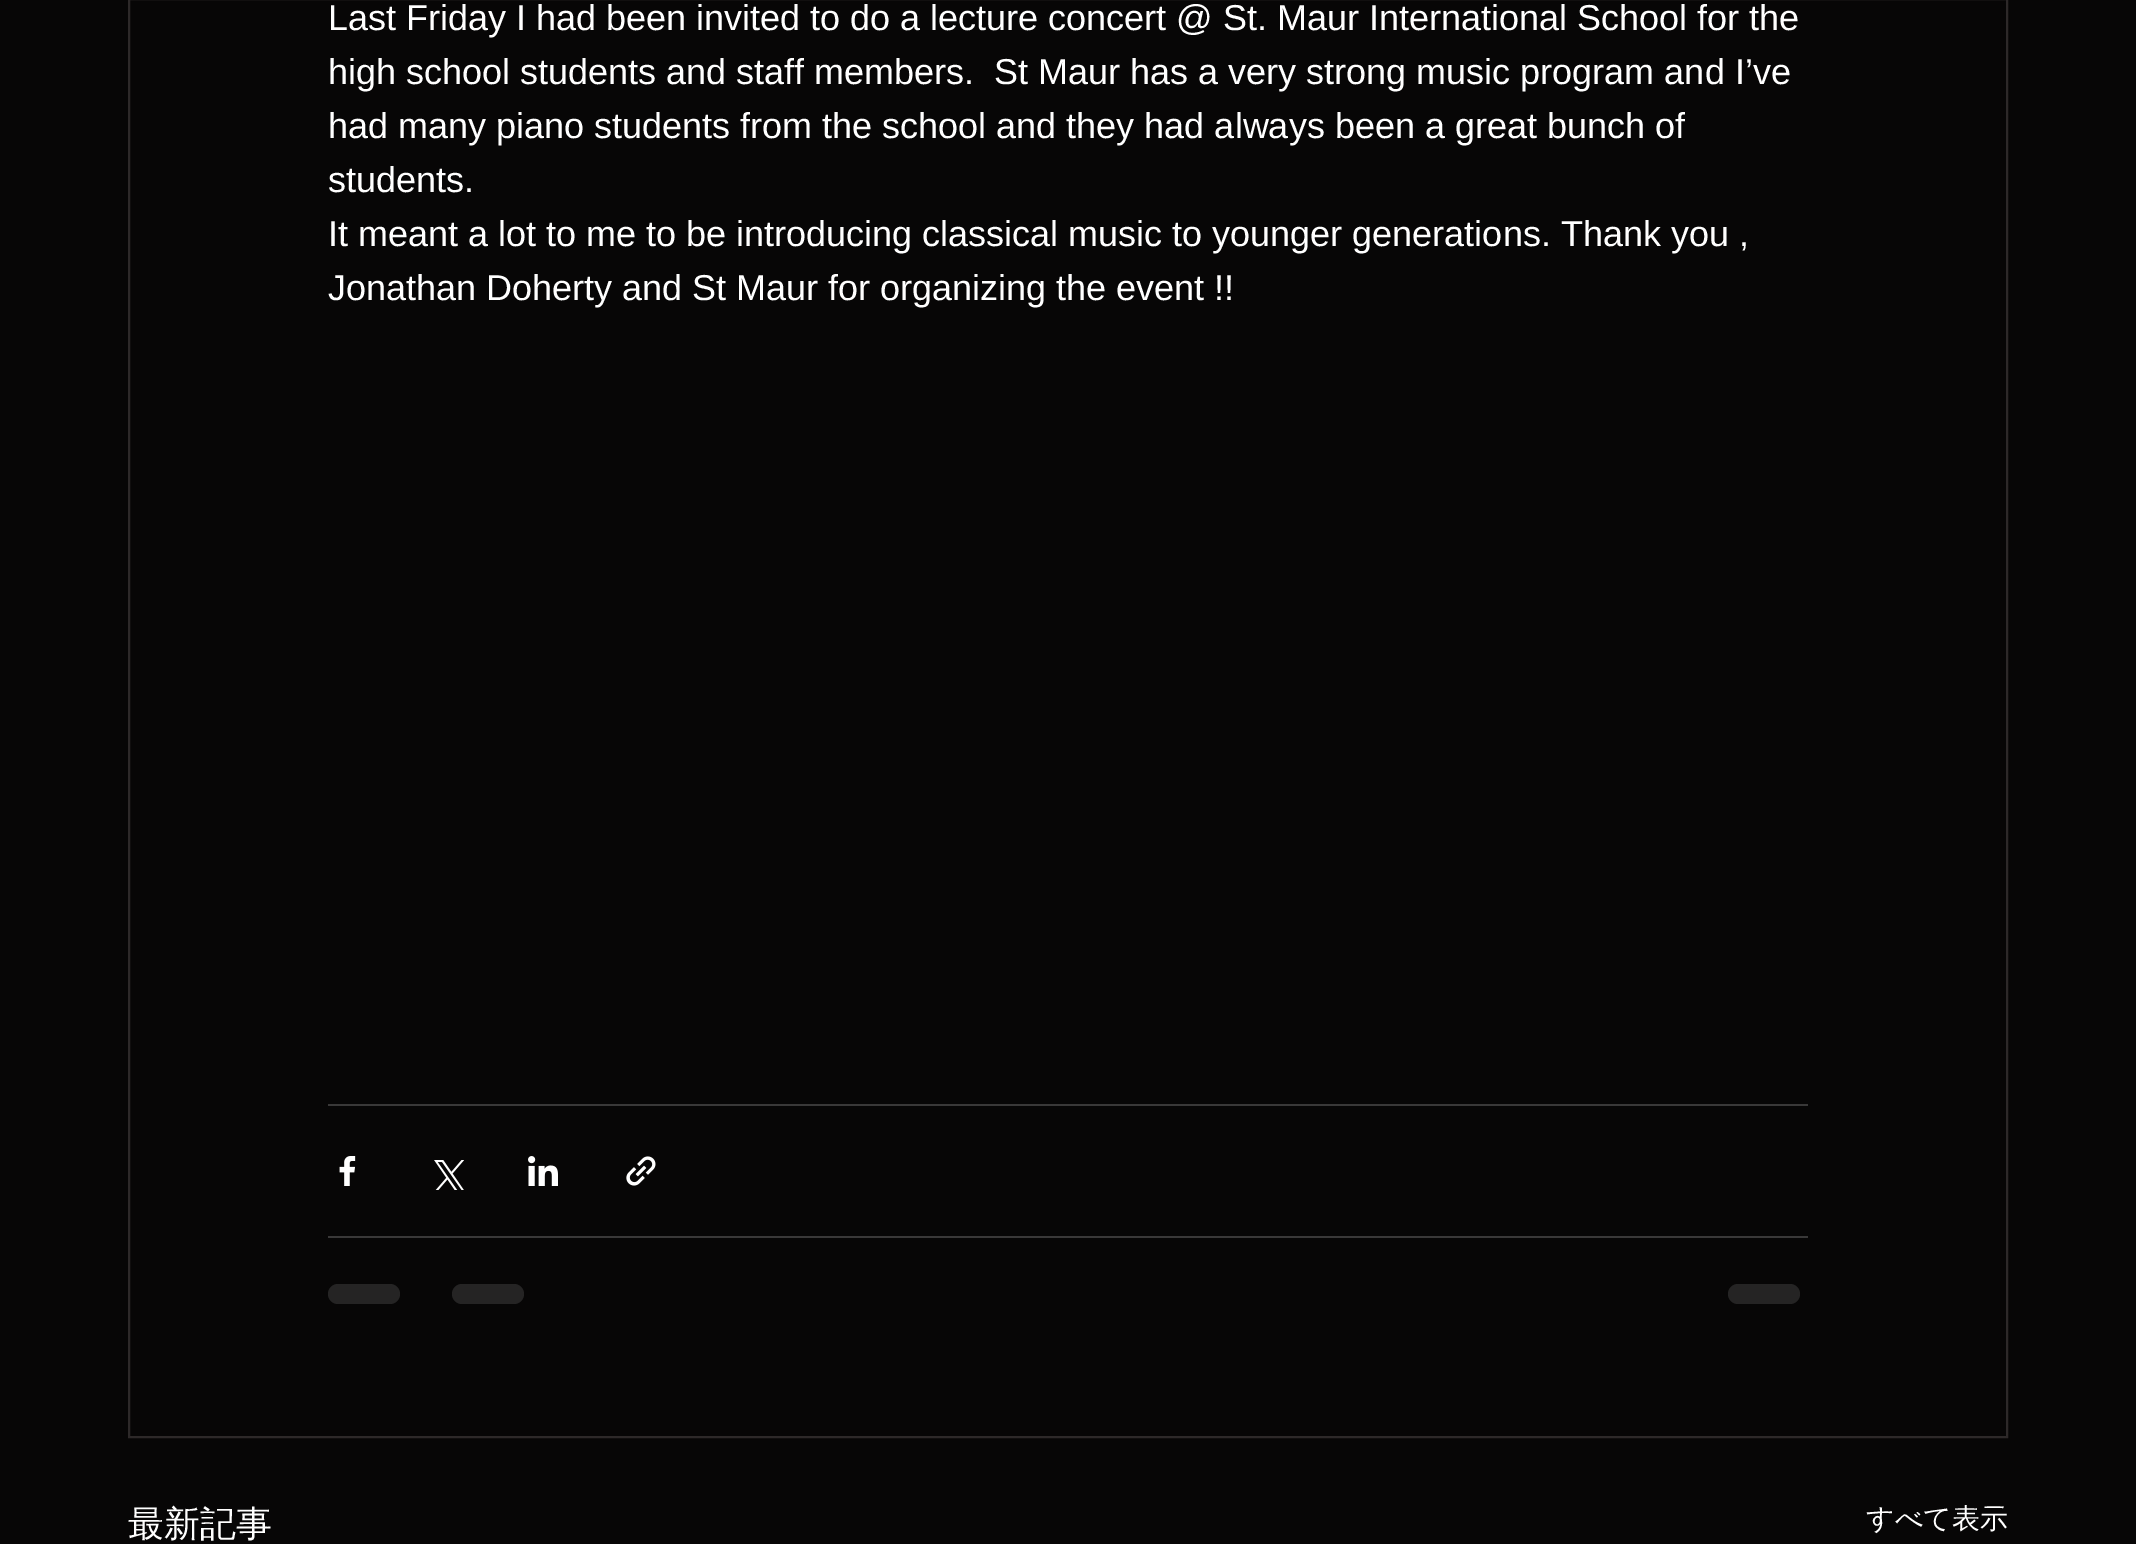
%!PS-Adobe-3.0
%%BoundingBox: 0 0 2136 1544
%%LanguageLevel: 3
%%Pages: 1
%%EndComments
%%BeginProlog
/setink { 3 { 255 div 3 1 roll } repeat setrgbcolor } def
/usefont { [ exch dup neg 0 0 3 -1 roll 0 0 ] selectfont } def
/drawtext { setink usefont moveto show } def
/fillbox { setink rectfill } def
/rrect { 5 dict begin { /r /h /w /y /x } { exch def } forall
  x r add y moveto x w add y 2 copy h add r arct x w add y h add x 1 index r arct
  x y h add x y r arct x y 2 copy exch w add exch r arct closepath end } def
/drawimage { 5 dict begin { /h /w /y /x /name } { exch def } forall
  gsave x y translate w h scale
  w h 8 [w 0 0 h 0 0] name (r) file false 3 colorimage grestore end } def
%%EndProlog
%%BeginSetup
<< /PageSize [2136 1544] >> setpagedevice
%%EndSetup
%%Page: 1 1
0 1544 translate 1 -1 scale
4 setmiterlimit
0 0 2136 1544 7 6 6 fillbox
45 41 41 setink
2 setlinewidth
129 -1 1878 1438 rectstroke
(Last Friday I had been invited to do a lecture concert @ St. Maur International School for the) 328 30 /LiberationSans-Regular 36 255 255 255 drawtext
(high school students and staff members.  St Maur has a very strong music program and I’ve) 328 84 /LiberationSans-Regular 36 255 255 255 drawtext
(had many piano students from the school and they had always been a great bunch of) 328 138 /LiberationSans-Regular 36 255 255 255 drawtext
(students.) 328 192 /LiberationSans-Regular 36 255 255 255 drawtext
(It meant a lot to me to be introducing classical music to younger generations. Thank you ,) 328 246 /LiberationSans-Regular 36 255 255 255 drawtext
(Jonathan Doherty and St Maur for organizing the event !!) 328 300 /LiberationSans-Regular 36 255 255 255 drawtext
328 1104 1480 2 57 56 56 fillbox
(assets/img1.rgb) 339 1156 17 30 drawimage
(assets/img2.rgb) 434 1160 30 30 drawimage
(assets/img3.rgb) 528 1156 30 30 drawimage
(assets/img4.rgb) 626 1156 30 30 drawimage
328 1236 1480 2 57 56 56 fillbox
37 36 36 setink
328 1284 72 20 10 rrect fill
452 1284 72 20 10 rrect fill
1728 1284 72 20 10 rrect fill
(最新記事) 128 1536 /WenQuanYiZenHei-Medium 36 255 255 255 drawtext
(すべて表示) 1866 1528 /WenQuanYiZenHei-Medium 28 255 255 255 drawtext
showpage
%%EOF
